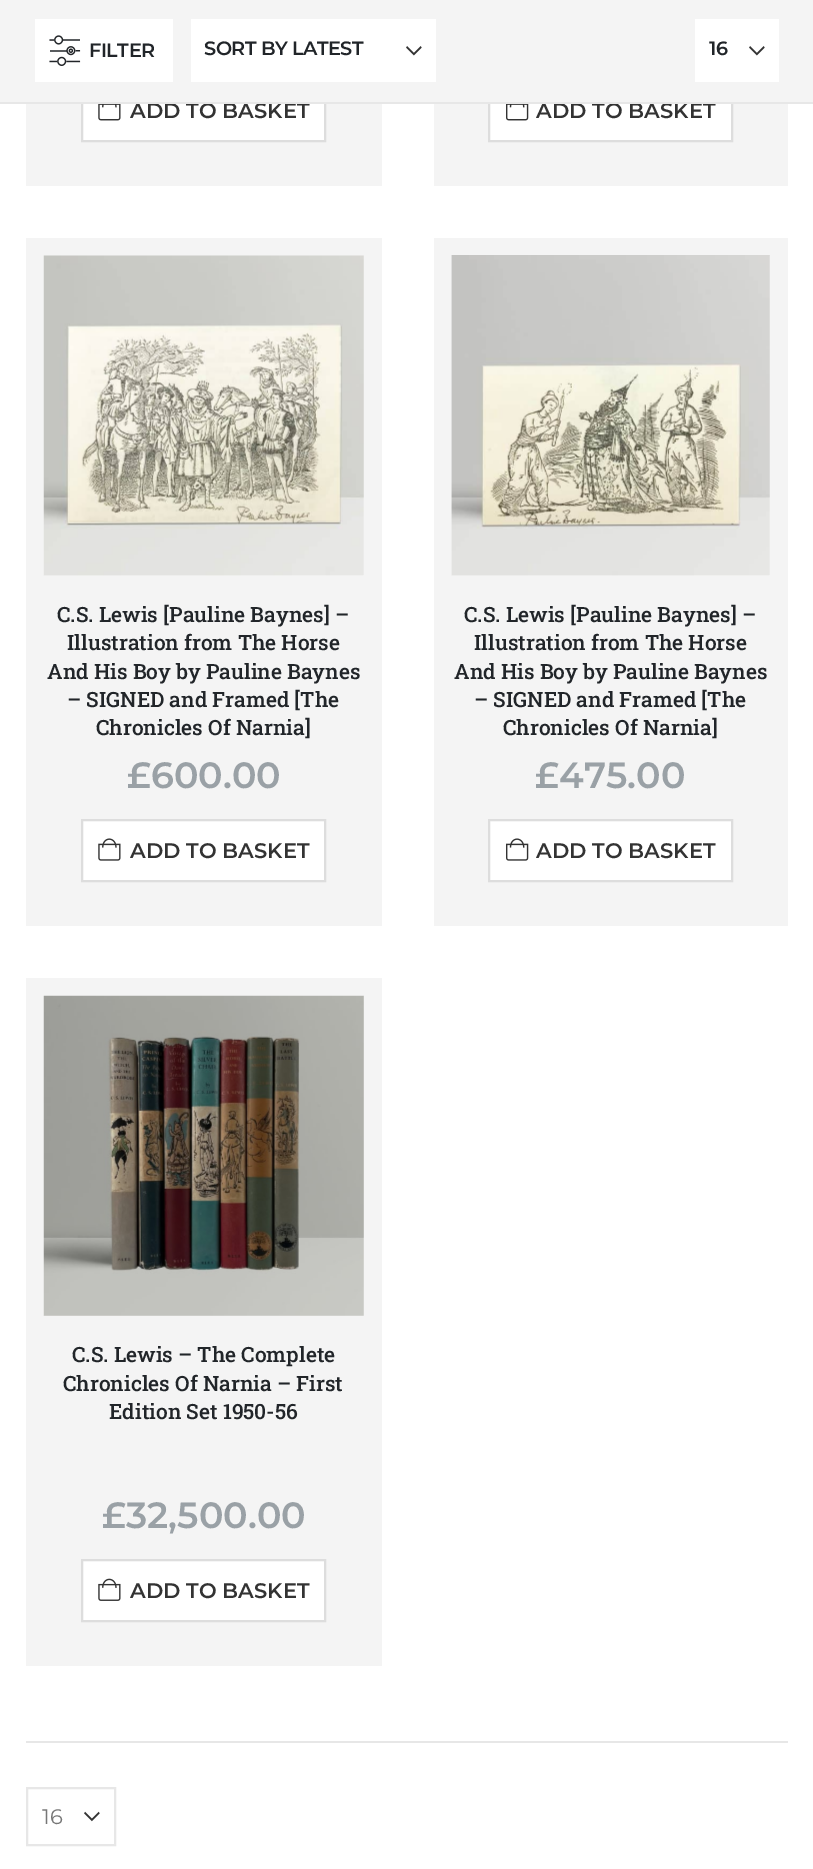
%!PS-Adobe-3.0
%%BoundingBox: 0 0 813 1869
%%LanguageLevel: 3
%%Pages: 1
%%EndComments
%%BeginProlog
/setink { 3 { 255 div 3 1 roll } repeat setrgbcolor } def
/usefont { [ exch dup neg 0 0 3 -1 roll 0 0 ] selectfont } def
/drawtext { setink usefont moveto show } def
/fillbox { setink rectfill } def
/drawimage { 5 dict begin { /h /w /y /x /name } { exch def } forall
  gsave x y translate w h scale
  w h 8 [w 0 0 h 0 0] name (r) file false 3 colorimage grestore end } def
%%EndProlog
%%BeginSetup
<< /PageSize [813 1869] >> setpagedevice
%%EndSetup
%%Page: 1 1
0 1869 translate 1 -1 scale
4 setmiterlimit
0 0 813 1869 255 255 255 fillbox
26 104 356 82 244 244 244 fillbox
83 104 241 36 255 255 255 fillbox
221 221 221 setink
2 setlinewidth
82 80 243 61 rectstroke
434 104 354 82 244 244 244 fillbox
490 104 241 36 255 255 255 fillbox
221 221 221 setink
489 80 243 61 rectstroke
0 0 813 102 244 244 244 fillbox
(ADD TO BASKET) 130 118 /Montserrat-SemiBold 21 51 51 51 drawtext
(ADD TO BASKET) 536 118 /Montserrat-SemiBold 21 51 51 51 drawtext
0 102 813 2 231 231 231 fillbox
35 19 138 63 255 255 255 fillbox
(assets/img1.rgb) 49 35 32 31 drawimage
/Montserrat-SemiBold 19.25 usefont
33 37 41 setink
89 57 moveto -0.5 0 (FILTER) ashow
191 19 245 63 255 255 255 fillbox
(assets/img2.rgb) 406 46 16 10 drawimage
33 37 41 setink
204 55 moveto -0.5 0 (SORT BY LATEST) ashow
695 19 84 63 255 255 255 fillbox
(assets/img2.rgb) 749 46 16 10 drawimage
33 37 41 setink
709 55 moveto -0.5 0 (16) ashow
(assets/img3.rgb) 98 104 23 17 drawimage
(assets/img4.rgb) 506 104 23 17 drawimage
26 238 356 688 244 244 244 fillbox
44 256 320 320 255 255 255 fillbox
(assets/img5.rgb) 43 255 321 321 drawimage
(C.S. Lewis [Pauline Baynes] –) 57 622 /RobotoSlab-Medium 21 33 37 41 drawtext
(Illustration from The Horse) 67 650 /RobotoSlab-Medium 21 33 37 41 drawtext
(And His Boy by Pauline Baynes) 47 679 /RobotoSlab-Medium 21 33 37 41 drawtext
(– SIGNED and Framed [The) 67 707 /RobotoSlab-Medium 21 33 37 41 drawtext
(Chronicles Of Narnia]) 96 735 /RobotoSlab-Medium 21 33 37 41 drawtext
(£600.00) 127 788 /Montserrat-SemiBold 36.5 154 161 166 drawtext
255 255 255 setink
82 820 moveto 325 820 lineto 325 881 lineto 82 881 lineto closepath gsave fill grestore
221 221 221 setink
stroke
(assets/img6.rgb) 98 838 23 23 drawimage
(ADD TO BASKET) 130 858 /Montserrat-SemiBold 21 51 51 51 drawtext
434 238 354 688 244 244 244 fillbox
452 256 318 320 255 255 255 fillbox
(assets/img7.rgb) 451 255 319 321 drawimage
(C.S. Lewis [Pauline Baynes] –) 464 622 /RobotoSlab-Medium 21 33 37 41 drawtext
(Illustration from The Horse) 474 650 /RobotoSlab-Medium 21 33 37 41 drawtext
(And His Boy by Pauline Baynes) 454 679 /RobotoSlab-Medium 21 33 37 41 drawtext
(– SIGNED and Framed [The) 474 707 /RobotoSlab-Medium 21 33 37 41 drawtext
(Chronicles Of Narnia]) 503 735 /RobotoSlab-Medium 21 33 37 41 drawtext
(£475.00) 535 788 /Montserrat-SemiBold 36.5 154 161 166 drawtext
255 255 255 setink
489 820 moveto 732 820 lineto 732 881 lineto 489 881 lineto closepath gsave fill grestore
221 221 221 setink
stroke
(assets/img8.rgb) 506 838 23 23 drawimage
(ADD TO BASKET) 536 858 /Montserrat-SemiBold 21 51 51 51 drawtext
26 978 356 688 244 244 244 fillbox
44 996 320 320 255 255 255 fillbox
(assets/img9.rgb) 43 995 321 321 drawimage
(C.S. Lewis – The Complete) 72 1362 /RobotoSlab-Medium 21 33 37 41 drawtext
(Chronicles Of Narnia – First) 63 1391 /RobotoSlab-Medium 21 33 37 41 drawtext
(Edition Set 1950-56) 109 1419 /RobotoSlab-Medium 21 33 37 41 drawtext
(£32,500.00) 102 1528 /Montserrat-SemiBold 36.5 154 161 166 drawtext
255 255 255 setink
82 1560 moveto 325 1560 lineto 325 1621 lineto 82 1621 lineto closepath gsave fill grestore
221 221 221 setink
stroke
(assets/img10.rgb) 98 1578 23 23 drawimage
(ADD TO BASKET) 130 1598 /Montserrat-SemiBold 21 51 51 51 drawtext
26 1741 762 2 231 231 231 fillbox
(assets/img11.rgb) 84 1811 16 11 drawimage
27 1788 88 57 rectstroke
(16) 42 1824 /Montserrat-Regular 21 119 119 119 drawtext
showpage
%%EOF
